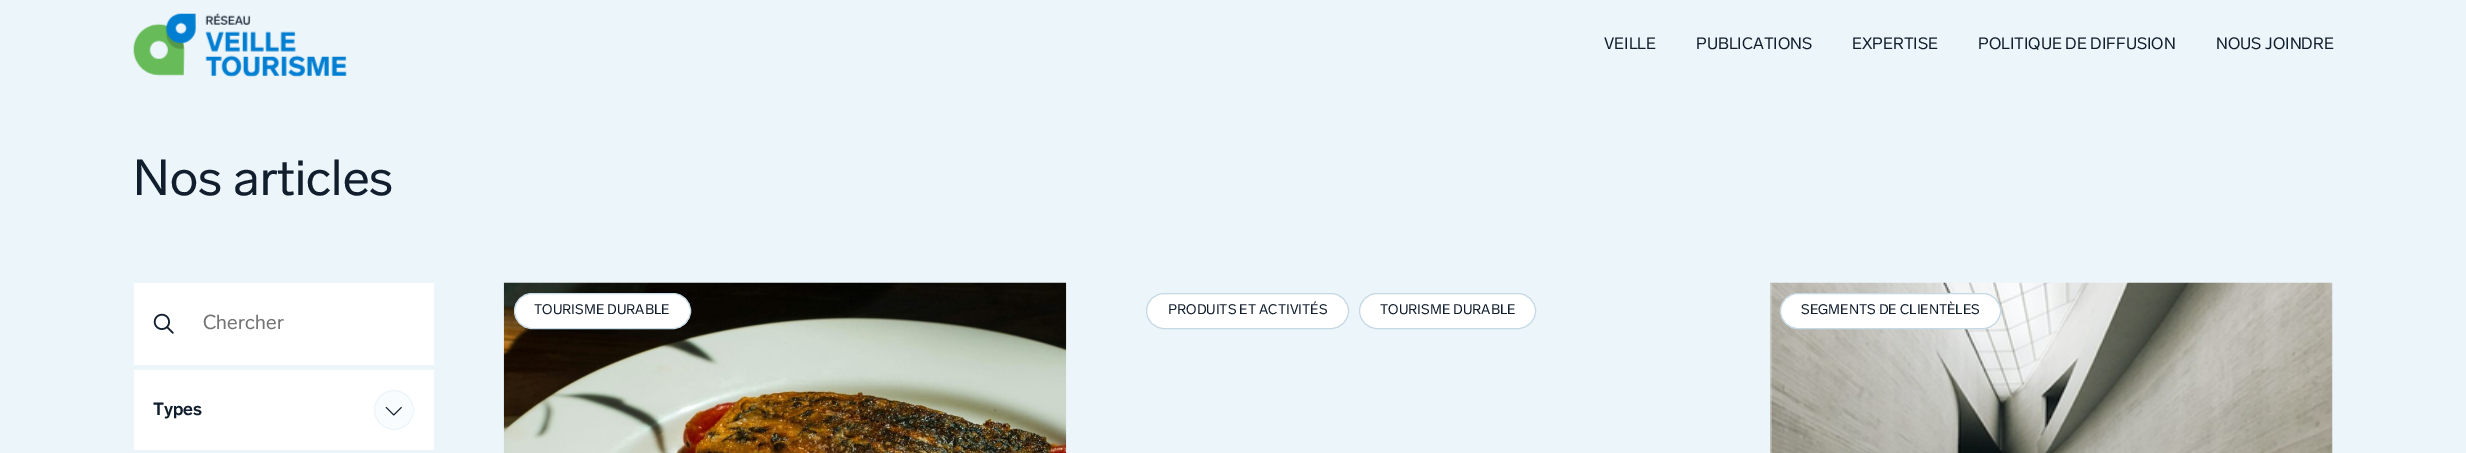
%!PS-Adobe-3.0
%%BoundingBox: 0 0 2466 453
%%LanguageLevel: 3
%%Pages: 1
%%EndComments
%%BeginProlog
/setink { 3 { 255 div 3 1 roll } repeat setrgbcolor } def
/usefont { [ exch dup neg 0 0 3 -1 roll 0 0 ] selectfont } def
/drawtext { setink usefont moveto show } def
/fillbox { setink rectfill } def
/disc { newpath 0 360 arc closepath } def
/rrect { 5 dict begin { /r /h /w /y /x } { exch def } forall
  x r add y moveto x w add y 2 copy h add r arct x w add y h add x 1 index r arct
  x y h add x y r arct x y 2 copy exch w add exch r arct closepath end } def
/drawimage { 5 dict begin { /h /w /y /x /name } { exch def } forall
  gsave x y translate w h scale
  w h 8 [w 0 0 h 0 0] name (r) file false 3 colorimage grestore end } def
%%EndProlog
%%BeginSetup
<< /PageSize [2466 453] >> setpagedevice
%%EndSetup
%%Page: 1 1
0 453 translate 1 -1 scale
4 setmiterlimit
0 0 2466 453 236 245 250 fillbox
(assets/img1.rgb) 133 13 214 64 drawimage
(VEILLE) 1604 49 /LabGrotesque-Regular 16.25 17 30 45 drawtext
(PUBLICATIONS) 1696 49 /LabGrotesque-Regular 16.25 17 30 45 drawtext
(EXPERTISE) 1852 49 /LabGrotesque-Regular 16.25 17 30 45 drawtext
(POLITIQUE DE DIFFUSION) 1978 49 /LabGrotesque-Regular 16.25 17 30 45 drawtext
(NOUS JOINDRE) 2216 49 /LabGrotesque-Regular 16.25 17 30 45 drawtext
(Nos articles) 133 195 /LabGrotesque-Regular 50 17 30 45 drawtext
(assets/img2.rgb) 503 282 564 171 drawimage
255 255 255 setink
514.5 293.5 176 35 17.5 rrect gsave fill grestore
197 217 228 setink
stroke
(TOURISME DURABLE) 534 314 /LabGrotesque-Regular 13.75 17 30 45 drawtext
255 255 255 setink
1146.5 293.5 202 35 17.5 rrect gsave fill grestore
197 217 228 setink
stroke
(PRODUITS ET ACTIVITÉS) 1168 314 /LabGrotesque-Regular 13.75 17 30 45 drawtext
255 255 255 setink
1359.5 293.5 176 35 17.5 rrect gsave fill grestore
197 217 228 setink
stroke
(TOURISME DURABLE) 1380 314 /LabGrotesque-Regular 13.75 17 30 45 drawtext
(assets/img3.rgb) 1770 282 563 171 drawimage
255 255 255 setink
1780.5 293.5 220 35 17.5 rrect gsave fill grestore
197 217 228 setink
stroke
(SEGMENTS DE CLIENTÈLES) 1801 314 /LabGrotesque-Regular 13.75 17 30 45 drawtext
134 283 300 82 255 255 255 fillbox
(assets/img4.rgb) 153 313 21 21 drawimage
(Chercher) 203 329 /LabGrotesque-Regular 20 117 117 117 drawtext
134 370 300 80 255 255 255 fillbox
(Types) 153 415 /LabGrotesque-Bold 17.5 17 30 45 drawtext
249 252 254 setink
394 410 19.5 disc gsave fill grestore
236 245 250 setink
stroke
(assets/img5.rgb) 385 406 17 10 drawimage
showpage
%%EOF
